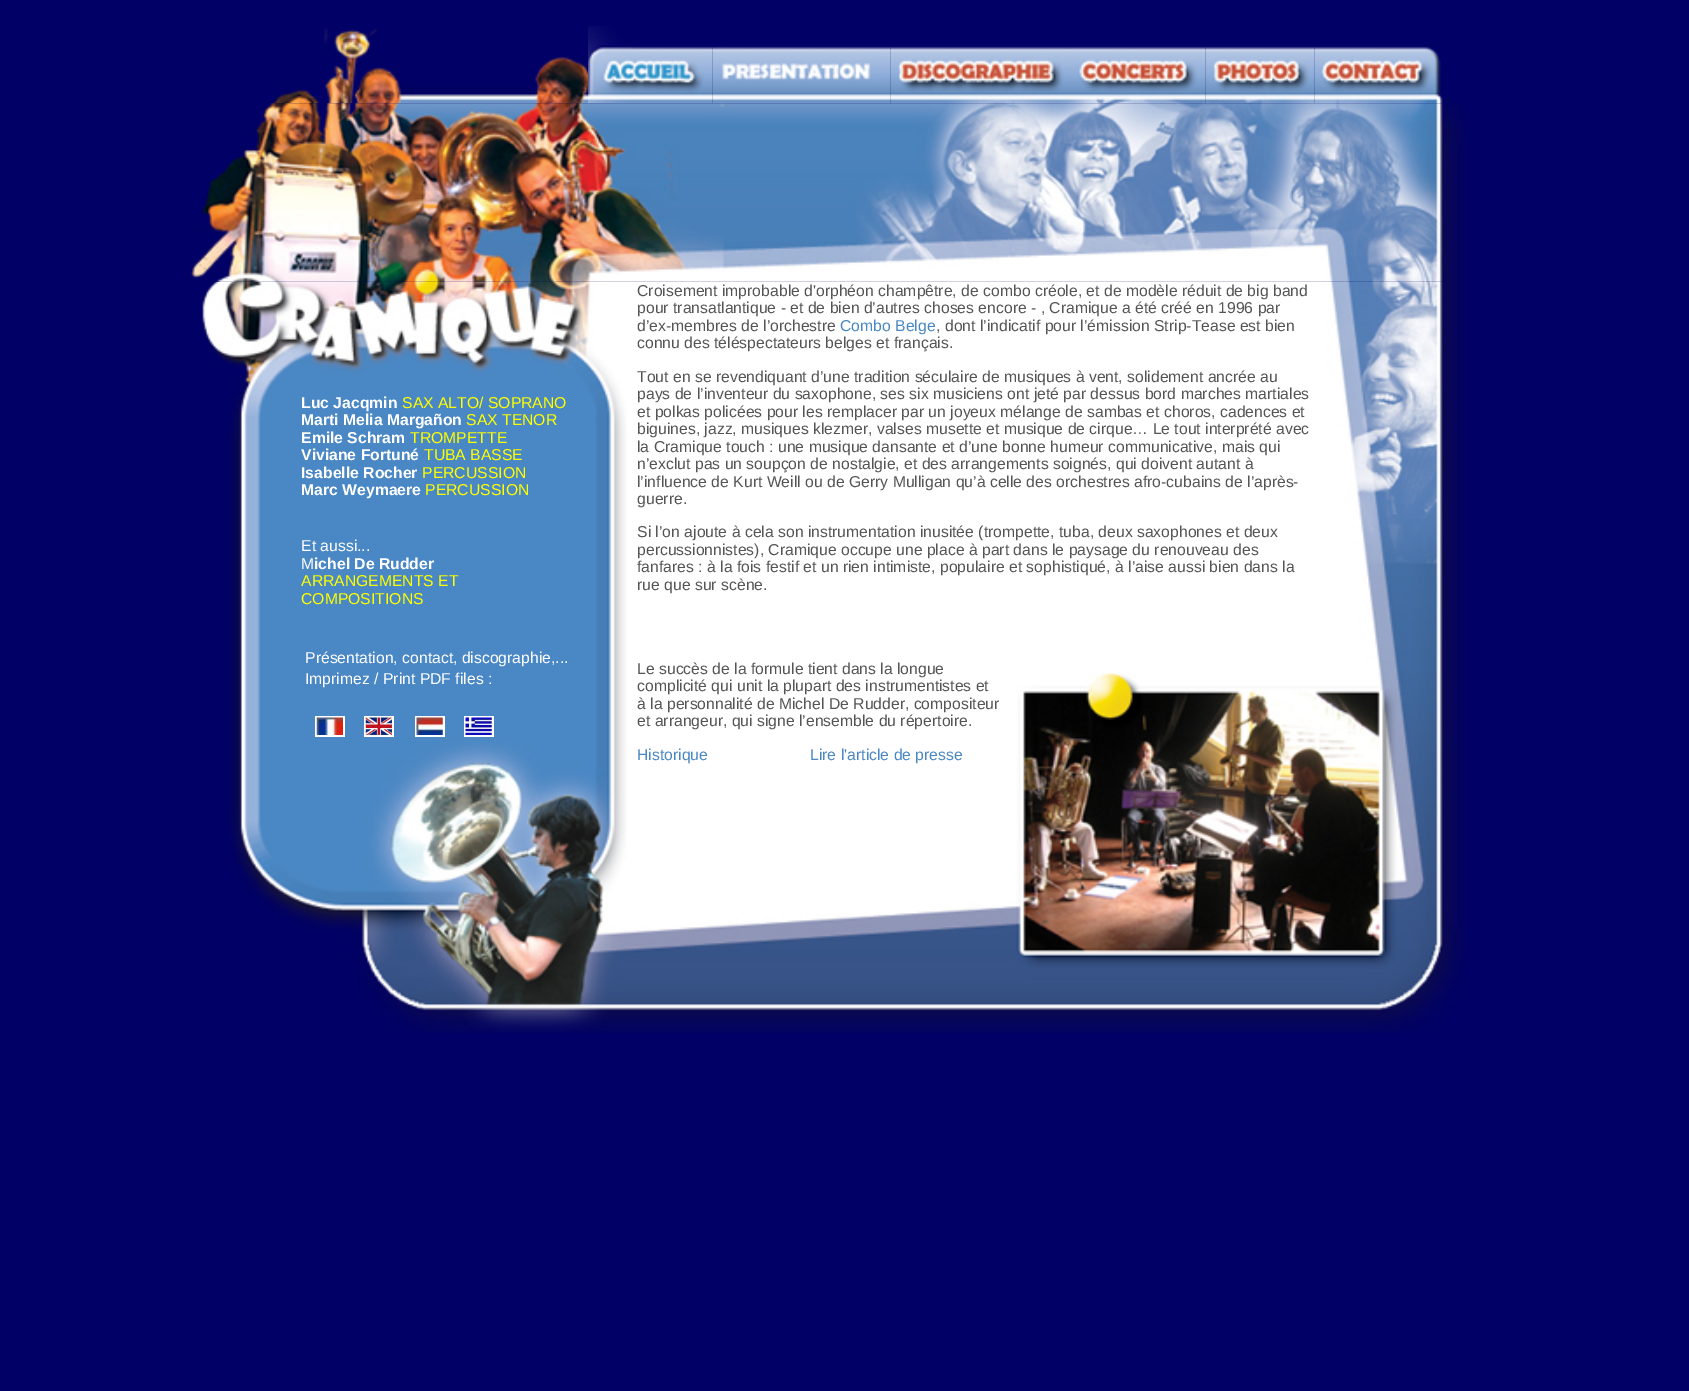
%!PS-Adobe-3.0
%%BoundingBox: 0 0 1689 1391
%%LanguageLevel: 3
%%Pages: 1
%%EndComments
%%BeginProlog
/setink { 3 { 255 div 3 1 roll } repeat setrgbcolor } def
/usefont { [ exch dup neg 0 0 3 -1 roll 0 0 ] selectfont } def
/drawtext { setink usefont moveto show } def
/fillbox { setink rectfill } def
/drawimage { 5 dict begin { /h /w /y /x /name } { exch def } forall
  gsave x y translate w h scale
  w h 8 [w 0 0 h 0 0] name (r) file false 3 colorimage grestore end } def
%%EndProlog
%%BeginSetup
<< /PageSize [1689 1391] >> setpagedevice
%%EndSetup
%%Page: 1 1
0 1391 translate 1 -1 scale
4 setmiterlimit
0 0 1689 1391 0 0 102 fillbox
(assets/img1.rgb) 273 28 315 76 drawimage
(assets/img2.rgb) 588 26 125 78 drawimage
(assets/img3.rgb) 712 46 179 58 drawimage
(assets/img4.rgb) 890 46 181 58 drawimage
(assets/img5.rgb) 1071 46 135 58 drawimage
(assets/img6.rgb) 1205 46 110 58 drawimage
(assets/img7.rgb) 1314 46 129 58 drawimage
1444 97 8 6 2 2 97 fillbox
(assets/img9.rgb) 202 281 1264 752 drawimage
(assets/img8.rgb) 190 103 1277 179 drawimage
(Luc Jacqmin) 301 408 /LiberationSans-Bold 15.75 255 255 255 drawtext
(SAX ALTO/ SOPRANO) 402 408 /LiberationSans-Regular 15.75 255 255 0 drawtext
(Marti Melia Margañon) 301 425 /LiberationSans-Bold 15.75 255 255 255 drawtext
(SAX TENOR) 466 425 /LiberationSans-Regular 15.75 255 255 0 drawtext
(Emile Schram) 301 443 /LiberationSans-Bold 15.75 255 255 255 drawtext
(TROMPETTE) 410 443 /LiberationSans-Regular 15.75 255 255 0 drawtext
(Viviane Fortuné) 301 460 /LiberationSans-Bold 15.75 255 255 255 drawtext
(TUBA BASSE) 424 460 /LiberationSans-Regular 15.75 255 255 0 drawtext
(Isabelle Rocher) 301 478 /LiberationSans-Bold 15.75 255 255 255 drawtext
(PERCUSSION) 422 478 /LiberationSans-Regular 15.75 255 255 0 drawtext
(Marc Weymaere) 301 495 /LiberationSans-Bold 15.75 255 255 255 drawtext
(PERCUSSION) 425 495 /LiberationSans-Regular 15.75 255 255 0 drawtext
(Et aussi...) 301 551 /LiberationSans-Regular 15.75 255 255 255 drawtext
(M) 301 569 /LiberationSans-Regular 15.75 255 255 255 drawtext
(ichel De Rudder) 314 569 /LiberationSans-Bold 15.75 255 255 255 drawtext
(ARRANGEMENTS ET) 301 586 /LiberationSans-Regular 15.75 255 255 0 drawtext
(COMPOSITIONS) 301 604 /LiberationSans-Regular 15.75 255 255 0 drawtext
(Croisement improbable d'orphéon champêtre, de combo créole, et de modèle réduit de big band) 637 296 /LiberationSans-Regular 15.75 85 85 85 drawtext
(pour transatlantique - et de bien d’autres choses encore - , Cramique a été créé en 1996 par) 637 313 /LiberationSans-Regular 15.75 85 85 85 drawtext
(d’ex-membres de l’orchestre) 637 331 /LiberationSans-Regular 15.75 85 85 85 drawtext
(Combo Belge) 840 331 /LiberationSans-Regular 15.75 74 136 195 drawtext
(, dont l’indicatif pour l’émission Strip-Tease est bien) 936 331 /LiberationSans-Regular 15.75 85 85 85 drawtext
(connu des téléspectateurs belges et français.) 637 348 /LiberationSans-Regular 15.75 85 85 85 drawtext
(Tout en se revendiquant d’une tradition séculaire de musiques à vent, solidement ancrée au) 637 382 /LiberationSans-Regular 15.75 85 85 85 drawtext
(pays de l’inventeur du saxophone, ses six musiciens ont jeté par dessus bord marches martiales) 637 399 /LiberationSans-Regular 15.75 85 85 85 drawtext
(et polkas policées pour les remplacer par un joyeux mélange de sambas et choros, cadences et) 637 417 /LiberationSans-Regular 15.75 85 85 85 drawtext
(biguines, jazz, musiques klezmer, valses musette et musique de cirque… Le tout interprété avec) 637 434 /LiberationSans-Regular 15.75 85 85 85 drawtext
(la Cramique touch : une musique dansante et d’une bonne humeur communicative, mais qui) 637 452 /LiberationSans-Regular 15.75 85 85 85 drawtext
(n’exclut pas un soupçon de nostalgie, et des arrangements soignés, qui doivent autant à) 637 469 /LiberationSans-Regular 15.75 85 85 85 drawtext
(l’influence de Kurt Weill ou de Gerry Mulligan qu’à celle des orchestres afro-cubains de l’après-) 637 487 /LiberationSans-Regular 15.75 85 85 85 drawtext
(guerre.) 637 504 /LiberationSans-Regular 15.75 85 85 85 drawtext
(Si l’on ajoute à cela son instrumentation inusitée \(trompette, tuba, deux saxophones et deux) 637 537 /LiberationSans-Regular 15.75 85 85 85 drawtext
(percussionnistes\), Cramique occupe une place à part dans le paysage du renouveau des) 637 555 /LiberationSans-Regular 15.75 85 85 85 drawtext
(fanfares : à la fois festif et un rien intimiste, populaire et sophistiqué, à l’aise aussi bien dans la) 637 572 /LiberationSans-Regular 15.75 85 85 85 drawtext
(rue que sur scène.) 637 590 /LiberationSans-Regular 15.75 85 85 85 drawtext
(Le succès de la formule tient dans la longue) 637 674 /LiberationSans-Regular 15.75 85 85 85 drawtext
(complicité qui unit la plupart des instrumentistes et) 637 691 /LiberationSans-Regular 15.75 85 85 85 drawtext
(à la personnalité de Michel De Rudder, compositeur) 637 709 /LiberationSans-Regular 15.75 85 85 85 drawtext
(et arrangeur, qui signe l’ensemble du répertoire.) 637 726 /LiberationSans-Regular 15.75 85 85 85 drawtext
(Historique) 637 760 /LiberationSans-Regular 15.75 74 136 195 drawtext
(Lire l'article de presse) 810 760 /LiberationSans-Regular 15.75 74 136 195 drawtext
(Présentation, contact, discographie,...) 305 663 /LiberationSans-Regular 15.75 255 255 255 drawtext
(Imprimez / Print PDF files :) 305 684 /LiberationSans-Regular 15.75 255 255 255 drawtext
315 716 30 21 255 255 255 fillbox
(assets/img10.rgb) 316 717 27 18 drawimage
364 716 30 21 255 255 255 fillbox
(assets/img11.rgb) 365 717 27 18 drawimage
415 716 30 21 255 255 255 fillbox
(assets/img12.rgb) 416 717 27 18 drawimage
464 716 30 21 255 255 255 fillbox
(assets/img13.rgb) 465 717 27 18 drawimage
showpage
%%EOF
